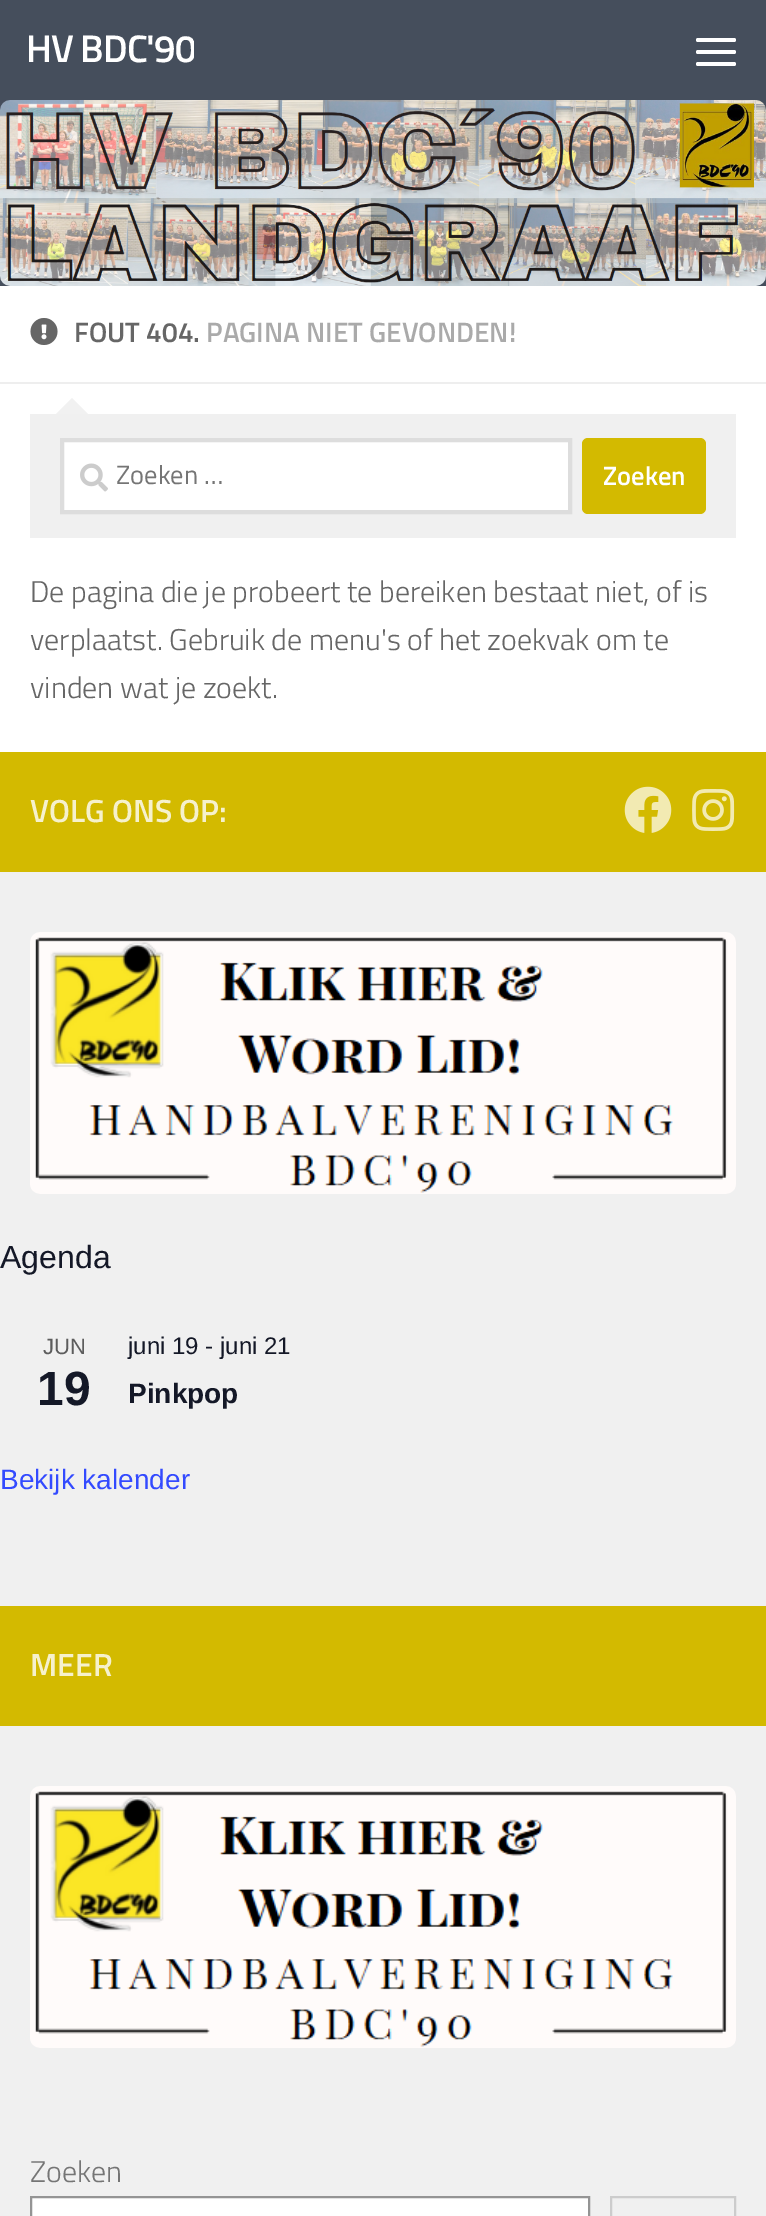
%!PS-Adobe-3.0
%%BoundingBox: 0 0 766 2216
%%LanguageLevel: 3
%%Pages: 1
%%EndComments
%%BeginProlog
/setink { 3 { 255 div 3 1 roll } repeat setrgbcolor } def
/usefont { [ exch dup neg 0 0 3 -1 roll 0 0 ] selectfont } def
/drawtext { setink usefont moveto show } def
/fillbox { setink rectfill } def
/rrect { 5 dict begin { /r /h /w /y /x } { exch def } forall
  x r add y moveto x w add y 2 copy h add r arct x w add y h add x 1 index r arct
  x y h add x y r arct x y 2 copy exch w add exch r arct closepath end } def
/drawimage { 5 dict begin { /h /w /y /x /name } { exch def } forall
  gsave x y translate w h scale
  w h 8 [w 0 0 h 0 0] name (r) file false 3 colorimage grestore end } def
%%EndProlog
%%BeginSetup
<< /PageSize [766 2216] >> setpagedevice
%%EndSetup
%%Page: 1 1
0 2216 translate 1 -1 scale
4 setmiterlimit
0 0 766 2216 255 255 255 fillbox
0 0 766 286 69 78 92 fillbox
gsave
26 0 168 100 rectclip
/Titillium-SemiBold 38.5 usefont
255 255 255 setink
26 62 moveto -1 0 (HV BDC'90) ashow
grestore
255 255 255 setink
696 38 40 4 2 rrect fill
696 50 40 4 2 rrect fill
696 62 40 4 2 rrect fill
(assets/img1.rgb) 0 100 766 186 drawimage
0 382 766 2 238 238 238 fillbox
(assets/img2.rgb) 30 318 28 27 drawimage
(FOUT 404.) 74 342 /Titillium-SemiBold 28 102 102 102 drawtext
(PAGINA NIET GEVONDEN!) 206 342 /Titillium-SemiBold 28 170 170 170 drawtext
30 414 706 124 240 240 240 fillbox
241 241 241 setink
88 414 moveto 56 414 lineto 72 398 lineto closepath fill
255 255 255 setink
62 440 moveto 570 440 lineto 570 512 lineto 62 512 lineto closepath gsave fill grestore
221 221 221 setink
4 setlinewidth
stroke
(assets/img3.rgb) 80 463 28 29 drawimage
(Zoeken …) 116 484 /Titillium-Regular 26.5 117 117 117 drawtext
211 186 0 setink
582 438 124 76 6 rrect fill
(Zoeken) 603 485 /Titillium-SemiBold 26.5 255 255 255 drawtext
(De pagina die je probeert te bereiken bestaat niet, of is) 30 602 /Titillium-Light 30 102 102 102 drawtext
(verplaatst. Gebruik de menu's of het zoekvak om te) 30 650 /Titillium-Light 30 102 102 102 drawtext
(vinden wat je zoekt.) 30 698 /Titillium-Light 30 102 102 102 drawtext
0 872 766 734 240 240 240 fillbox
0 752 766 120 211 186 0 fillbox
(VOLG ONS OP:) 30 822 /Titillium-SemiBold 32 246 241 204 drawtext
(assets/img4.rgb) 624 786 48 47 drawimage
(assets/img5.rgb) 692 789 43 42 drawimage
(assets/img6.rgb) 30 932 706 262 drawimage
(Agenda) 0 1268 /LiberationSans-Regular 32 20 24 39 drawtext
(JUN) 43 1354 /LiberationSans-Regular 22 93 93 93 drawtext
(19) 37 1405 /LiberationSans-Bold 48 20 24 39 drawtext
(juni 19 - juni 21) 128 1354 /LiberationSans-Regular 24 20 24 39 drawtext
(Pinkpop) 128 1403 /LiberationSans-Bold 28 20 24 39 drawtext
(Bekijk kalender) 0 1489 /LiberationSans-Regular 28 51 74 255 drawtext
0 1726 766 490 240 240 240 fillbox
0 1606 766 120 211 186 0 fillbox
(MEER) 30 1676 /Titillium-SemiBold 32 246 241 204 drawtext
(assets/img6.rgb) 30 1786 706 262 drawimage
(Zoeken) 30 2182 /Titillium-Light 30 117 117 117 drawtext
255 255 255 setink
31 2197 moveto 589 2197 lineto 589 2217 lineto 31 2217 lineto closepath gsave fill grestore
148 148 148 setink
2 setlinewidth
stroke
204 204 204 setink
611 2197 124 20 rectstroke
showpage
%%EOF
